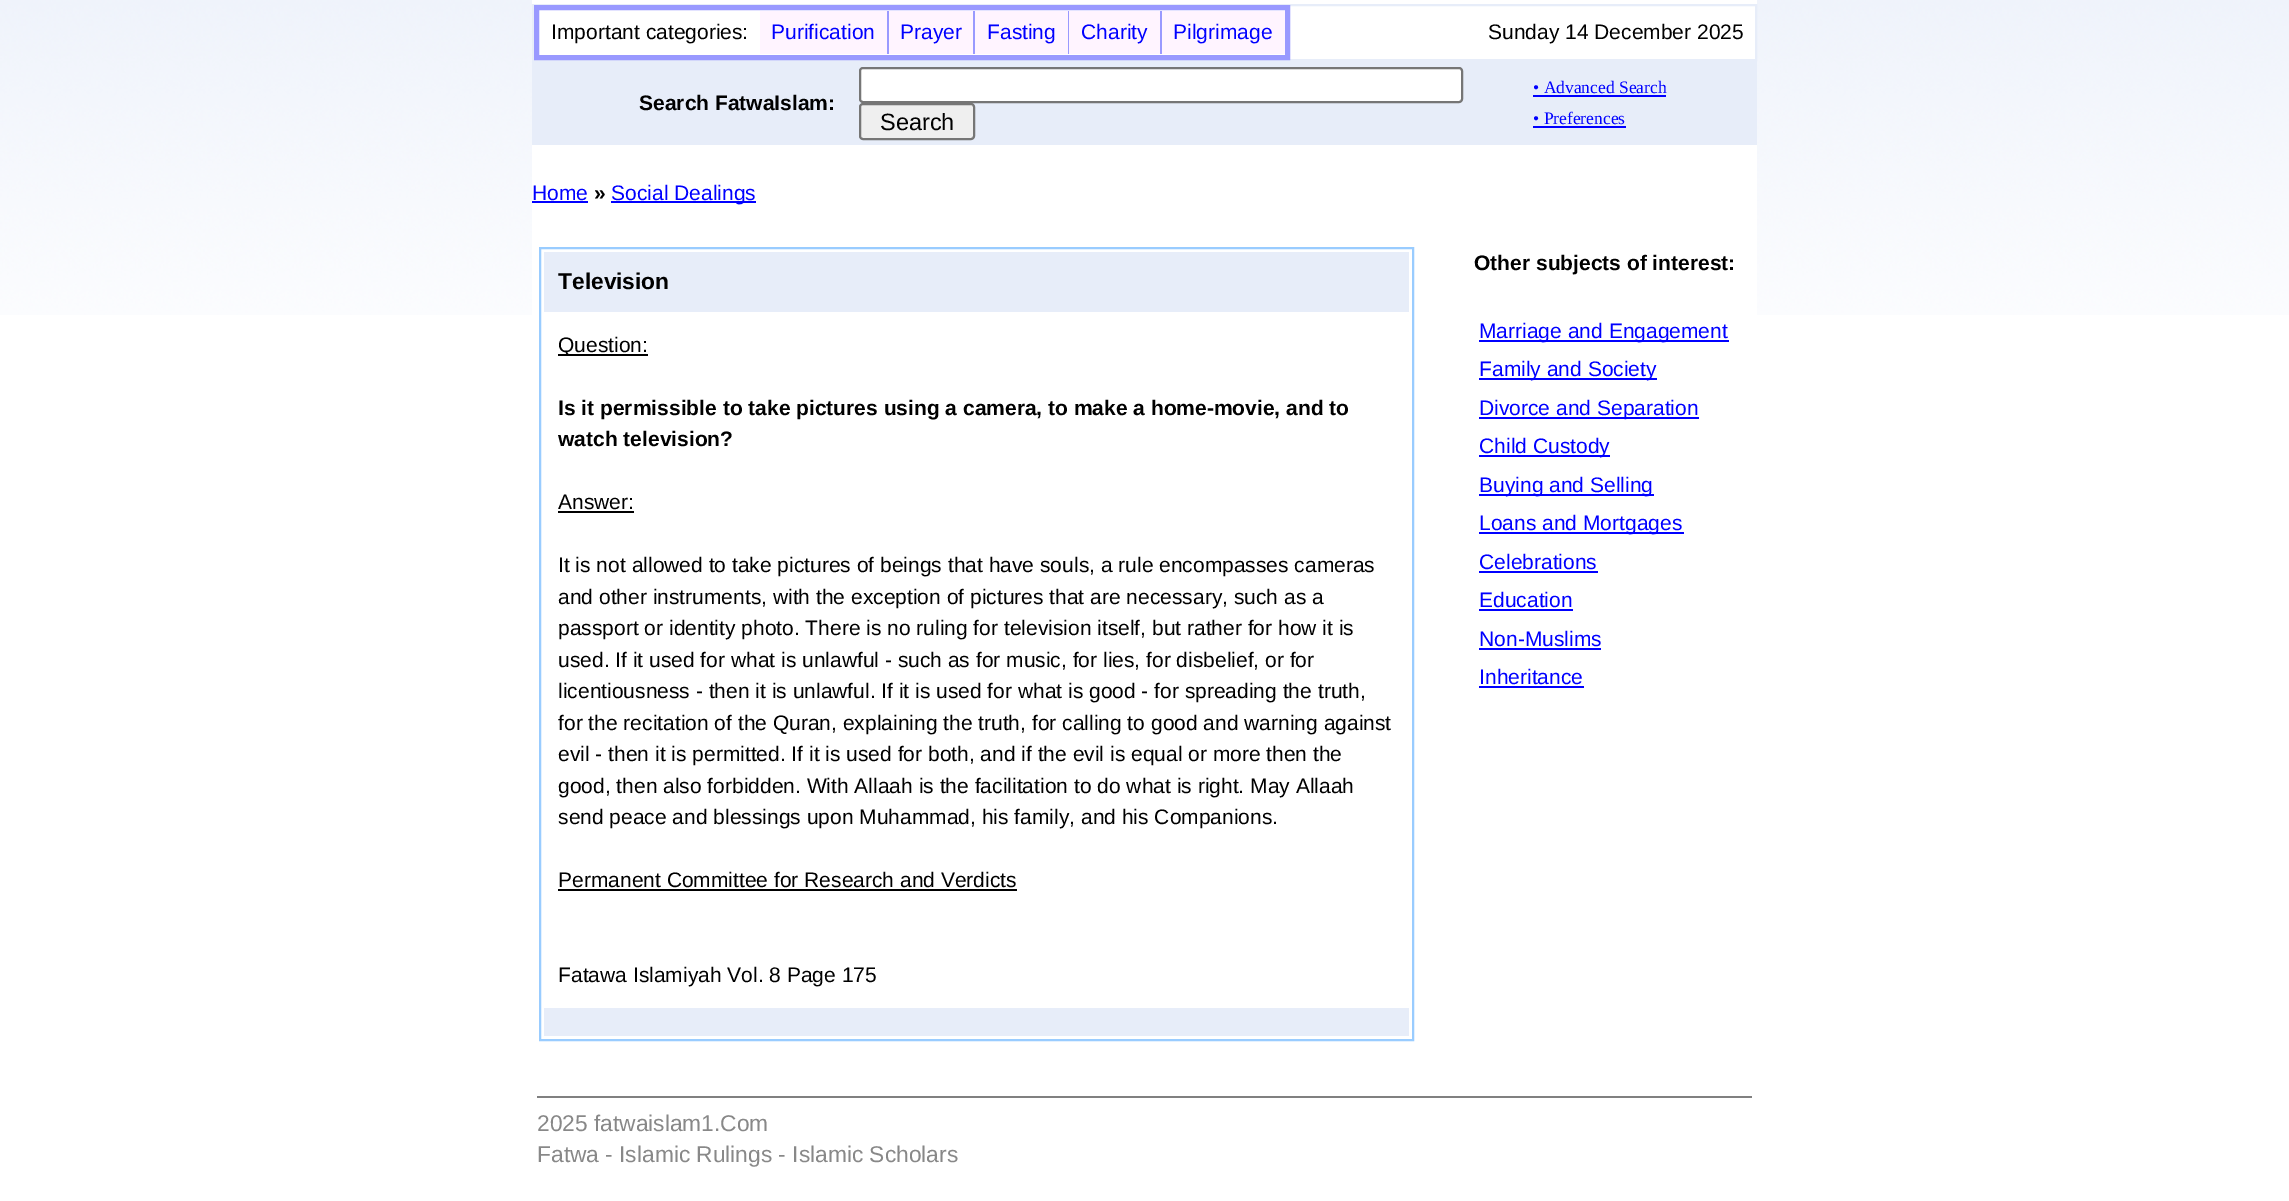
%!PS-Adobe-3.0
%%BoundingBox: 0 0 2289 1201
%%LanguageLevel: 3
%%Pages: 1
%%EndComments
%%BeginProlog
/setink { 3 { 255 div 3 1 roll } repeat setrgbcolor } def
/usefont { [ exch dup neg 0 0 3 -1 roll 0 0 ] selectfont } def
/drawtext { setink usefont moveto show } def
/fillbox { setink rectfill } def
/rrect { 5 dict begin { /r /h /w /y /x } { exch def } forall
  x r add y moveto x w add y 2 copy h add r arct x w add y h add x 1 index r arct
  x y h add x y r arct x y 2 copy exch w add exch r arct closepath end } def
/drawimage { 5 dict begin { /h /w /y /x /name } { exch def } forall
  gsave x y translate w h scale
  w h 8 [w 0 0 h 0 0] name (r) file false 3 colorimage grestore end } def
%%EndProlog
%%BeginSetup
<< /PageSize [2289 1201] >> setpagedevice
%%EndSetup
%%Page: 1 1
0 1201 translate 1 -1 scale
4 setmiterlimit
0 0 2289 1201 255 255 255 fillbox
(assets/img1.rgb) 0 0 2289 315 drawimage
532 0 1225 4 255 255 255 fillbox
539 6 1216 53 255 255 255 fillbox
231 237 249 setink
2 setlinewidth
533 5 1223 55 rectstroke
153 153 255 setink
5 setlinewidth
536.5 7.5 751 50 rectstroke
(Important categories:) 551 39 /LiberationSans-Regular 21 0 0 0 drawtext
760 11 127 43 255 244 255 fillbox
(Purification) 771 39 /LiberationSans-Regular 21 0 0 255 drawtext
887 11 2 43 153 153 255 fillbox
889 11 84 43 255 244 255 fillbox
(Prayer) 900 39 /LiberationSans-Regular 21 0 0 255 drawtext
973 11 2 43 153 153 255 fillbox
975 11 93 43 255 244 255 fillbox
(Fasting) 987 39 /LiberationSans-Regular 21 0 0 255 drawtext
1068 11 1 43 153 153 255 fillbox
1069 11 91 43 255 244 255 fillbox
(Charity) 1081 39 /LiberationSans-Regular 21 0 0 255 drawtext
1160 11 2 43 153 153 255 fillbox
1162 11 123 43 255 244 255 fillbox
(Pilgrimage) 1173 39 /LiberationSans-Regular 21 0 0 255 drawtext
(Sunday 14 December 2025) 1488 39 /LiberationSans-Regular 21 0 0 0 drawtext
532 61 1225 84 231 237 249 fillbox
(Search FatwaIslam:) 639 110 /LiberationSans-Bold 21 0 0 0 drawtext
(• Advanced Search) 1533 93 /LiberationSerif-Regular 17.5 0 0 255 drawtext
1533 95 133 2 0 0 255 fillbox
(• Preferences) 1533 124 /LiberationSerif-Regular 17.5 0 0 255 drawtext
1533 126 93 2 0 0 255 fillbox
255 255 255 setink
860 68 602 34 3 rrect gsave fill grestore
118 118 118 setink
2 setlinewidth
stroke
239 239 239 setink
860 104 114 35 3 rrect gsave fill grestore
118 118 118 setink
stroke
(Search) 880 130 /LiberationSans-Regular 23.5 0 0 0 drawtext
532 145 1225 170 255 255 255 fillbox
(Home) 532 200 /LiberationSans-Regular 21 0 0 255 drawtext
532 201 56 2 0 0 255 fillbox
(») 594 200 /LiberationSans-Bold 21 0 0 0 drawtext
611 201 145 2 0 0 255 fillbox
(Social Dealings) 611 200 /LiberationSans-Regular 21 0 0 255 drawtext
153 204 255 setink
540 248 873 792 rectstroke
544 252 865 60 231 237 249 fillbox
(Television) 558 289 /LiberationSans-Bold 22.75 0 0 0 drawtext
558 354 90 2 0 0 0 fillbox
(Question:) 558 352 /LiberationSans-Regular 21 0 0 0 drawtext
(Is it permissible to take pictures using a camera, to make a home-movie, and to) 558 415 /LiberationSans-Bold 21 0 0 0 drawtext
(watch television?) 558 446 /LiberationSans-Bold 21 0 0 0 drawtext
(Answer:) 558 509 /LiberationSans-Regular 21 0 0 0 drawtext
558 511 76 2 0 0 0 fillbox
(It is not allowed to take pictures of beings that have souls, a rule encompasses cameras) 558 572 /LiberationSans-Regular 21 0 0 0 drawtext
(and other instruments, with the exception of pictures that are necessary, such as a) 558 604 /LiberationSans-Regular 21 0 0 0 drawtext
(passport or identity photo. There is no ruling for television itself, but rather for how it is) 558 635 /LiberationSans-Regular 21 0 0 0 drawtext
(used. If it used for what is unlawful - such as for music, for lies, for disbelief, or for) 558 667 /LiberationSans-Regular 21 0 0 0 drawtext
(licentiousness - then it is unlawful. If it is used for what is good - for spreading the truth,) 558 698 /LiberationSans-Regular 21 0 0 0 drawtext
(for the recitation of the Quran, explaining the truth, for calling to good and warning against) 558 730 /LiberationSans-Regular 21 0 0 0 drawtext
(evil - then it is permitted. If it is used for both, and if the evil is equal or more then the) 558 761 /LiberationSans-Regular 21 0 0 0 drawtext
(good, then also forbidden. With Allaah is the facilitation to do what is right. May Allaah) 558 793 /LiberationSans-Regular 21 0 0 0 drawtext
(send peace and blessings upon Muhammad, his family, and his Companions.) 558 824 /LiberationSans-Regular 21 0 0 0 drawtext
(Permanent Committee for Research and Verdicts) 558 887 /LiberationSans-Regular 21 0 0 0 drawtext
558 889 459 2 0 0 0 fillbox
(Fatawa Islamiyah Vol. 8 Page 175) 558 982 /LiberationSans-Regular 21 0 0 0 drawtext
544 1008 865 28 231 237 249 fillbox
(Other subjects of interest:) 1474 270 /LiberationSans-Bold 21 0 0 0 drawtext
1479 340 250 2 0 0 255 fillbox
(Marriage and Engagement) 1479 338 /LiberationSans-Regular 21 0 0 255 drawtext
1479 378 178 2 0 0 255 fillbox
(Family and Society) 1479 376 /LiberationSans-Regular 21 0 0 255 drawtext
1479 417 220 2 0 0 255 fillbox
(Divorce and Separation) 1479 415 /LiberationSans-Regular 21 0 0 255 drawtext
1479 455 131 2 0 0 255 fillbox
(Child Custody) 1479 453 /LiberationSans-Regular 21 0 0 255 drawtext
1479 494 175 2 0 0 255 fillbox
(Buying and Selling) 1479 492 /LiberationSans-Regular 21 0 0 255 drawtext
1479 532 205 2 0 0 255 fillbox
(Loans and Mortgages) 1479 530 /LiberationSans-Regular 21 0 0 255 drawtext
(Celebrations) 1479 569 /LiberationSans-Regular 21 0 0 255 drawtext
1479 571 119 2 0 0 255 fillbox
(Education) 1479 607 /LiberationSans-Regular 21 0 0 255 drawtext
1479 609 94 2 0 0 255 fillbox
(Non-Muslims) 1479 646 /LiberationSans-Regular 21 0 0 255 drawtext
1479 648 122 2 0 0 255 fillbox
(Inheritance) 1479 684 /LiberationSans-Regular 21 0 0 255 drawtext
1479 686 105 2 0 0 255 fillbox
537 1096 1215 2 128 128 128 fillbox
(2025 fatwaislam1.Com) 537 1131 /LiberationSans-Regular 22.75 136 136 136 drawtext
(Fatwa - Islamic Rulings - Islamic Scholars) 537 1162 /LiberationSans-Regular 22.75 136 136 136 drawtext
showpage
%%EOF
